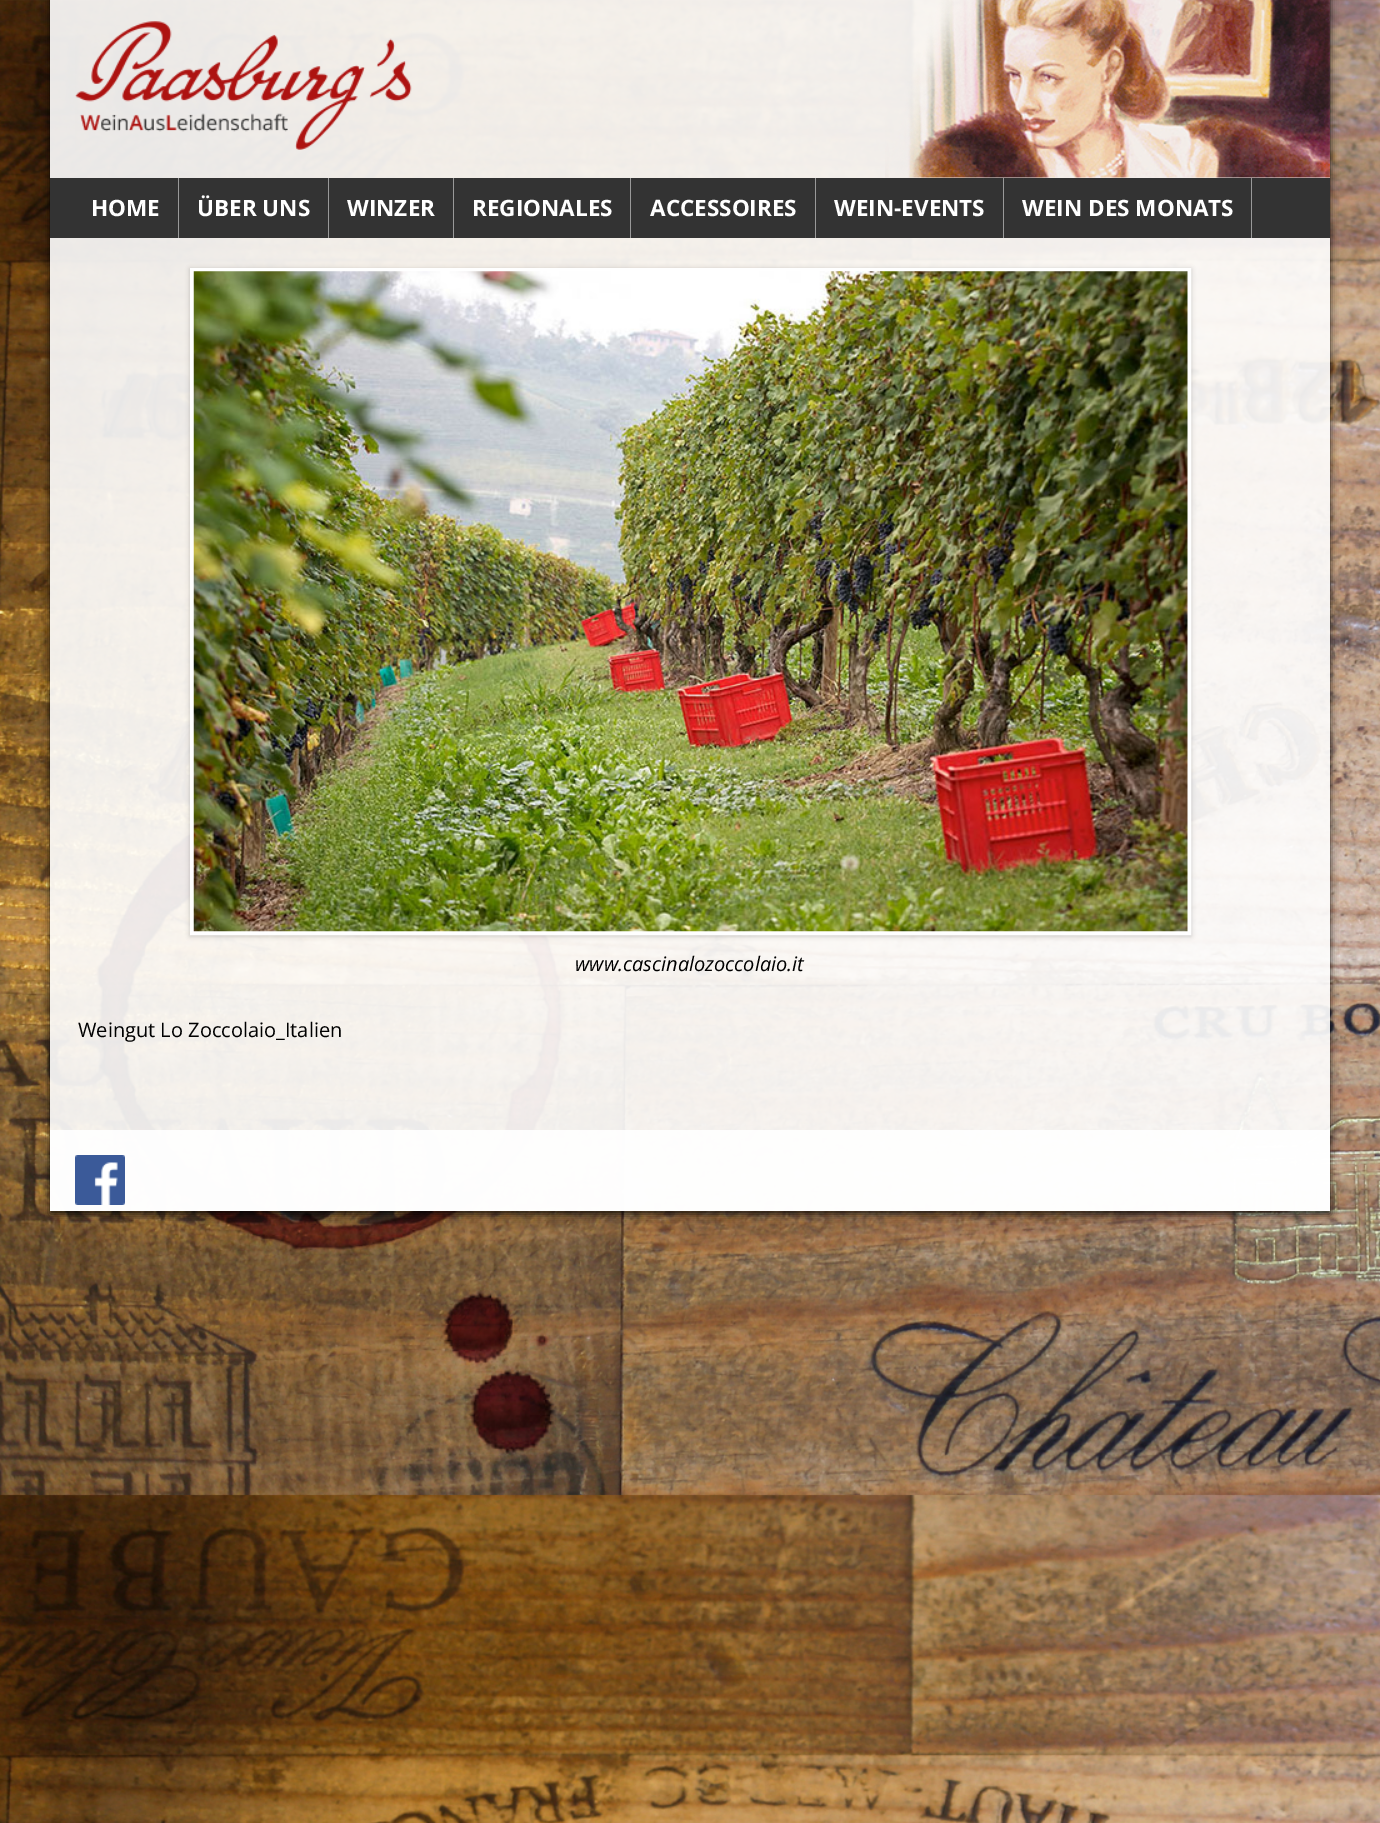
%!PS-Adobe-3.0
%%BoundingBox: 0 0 1380 1823
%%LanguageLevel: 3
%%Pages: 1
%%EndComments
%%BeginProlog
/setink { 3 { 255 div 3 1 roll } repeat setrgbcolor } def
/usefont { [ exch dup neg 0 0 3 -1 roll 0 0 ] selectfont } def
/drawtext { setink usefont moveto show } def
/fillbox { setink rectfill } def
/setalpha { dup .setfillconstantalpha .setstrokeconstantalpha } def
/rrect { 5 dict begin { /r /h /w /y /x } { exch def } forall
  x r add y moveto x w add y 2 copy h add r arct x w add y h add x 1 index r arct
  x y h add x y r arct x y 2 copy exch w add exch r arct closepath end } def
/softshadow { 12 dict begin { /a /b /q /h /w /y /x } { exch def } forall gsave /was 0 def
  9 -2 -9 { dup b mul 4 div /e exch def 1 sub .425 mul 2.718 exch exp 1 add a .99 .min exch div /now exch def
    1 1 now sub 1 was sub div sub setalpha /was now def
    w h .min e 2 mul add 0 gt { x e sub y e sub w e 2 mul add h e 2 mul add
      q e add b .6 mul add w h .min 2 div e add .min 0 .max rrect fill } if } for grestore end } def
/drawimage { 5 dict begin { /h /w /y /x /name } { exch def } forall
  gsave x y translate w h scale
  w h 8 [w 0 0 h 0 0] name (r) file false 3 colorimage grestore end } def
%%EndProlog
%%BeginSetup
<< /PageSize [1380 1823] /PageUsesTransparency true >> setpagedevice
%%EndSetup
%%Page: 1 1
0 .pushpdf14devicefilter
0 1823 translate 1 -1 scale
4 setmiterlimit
0 0 1380 1823 255 255 255 fillbox
(assets/img1.rgb) 0 0 1380 1823 drawimage
gsave
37 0 moveto 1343 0 lineto 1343 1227 lineto 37 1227 lineto closepath 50 -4 moveto 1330 -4 lineto 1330 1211 lineto 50 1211 lineto closepath eoclip newpath
0 0 0 setink
50 -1 1280 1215 0 4 0.8 softshadow
grestore
0.9 setalpha
50 0 1280 1211 255 255 255 fillbox
1 setalpha
(assets/img2.rgb) 885 0 445 178 drawimage
(assets/img3.rgb) 75 21 337 129 drawimage
50 178 1280 60 51 51 51 fillbox
178 178 1 60 153 153 153 fillbox
(HOME) 91 216 /OpenSans-Bold 22.5 255 255 255 drawtext
328 178 1 60 153 153 153 fillbox
(ÜBER UNS) 197 216 /OpenSans-Bold 22.5 255 255 255 drawtext
453 178 1 60 153 153 153 fillbox
(WINZER) 347 216 /OpenSans-Bold 22.5 255 255 255 drawtext
630 178 1 60 153 153 153 fillbox
(REGIONALES) 472 216 /OpenSans-Bold 22.5 255 255 255 drawtext
815 178 1 60 153 153 153 fillbox
(ACCESSOIRES) 650 216 /OpenSans-Bold 22.5 255 255 255 drawtext
1003 178 1 60 153 153 153 fillbox
(WEIN-EVENTS) 834 216 /OpenSans-Bold 22.5 255 255 255 drawtext
1251 178 1 60 153 153 153 fillbox
(WEIN DES MONATS) 1022 216 /OpenSans-Bold 22.5 255 255 255 drawtext
0 0 0 setink
190 269 1001 667 0 2.5 0.2 softshadow
255 255 255 setink
4 setlinewidth
192 270 997 663 rectstroke
(assets/img4.rgb) 193 271 995 661 drawimage
(www.cascinalozoccolaio.it) 575 971 /OpenSans-Italic 20 0 0 0 drawtext
(Weingut Lo Zoccolaio_Italien) 78 1037 /OpenSans-Regular 20 0 0 0 drawtext
0.9 setalpha
50 1130 1280 81 255 255 255 fillbox
1 setalpha
(assets/img5.rgb) 75 1155 50 50 drawimage
.poppdf14devicefilter showpage
%%EOF
